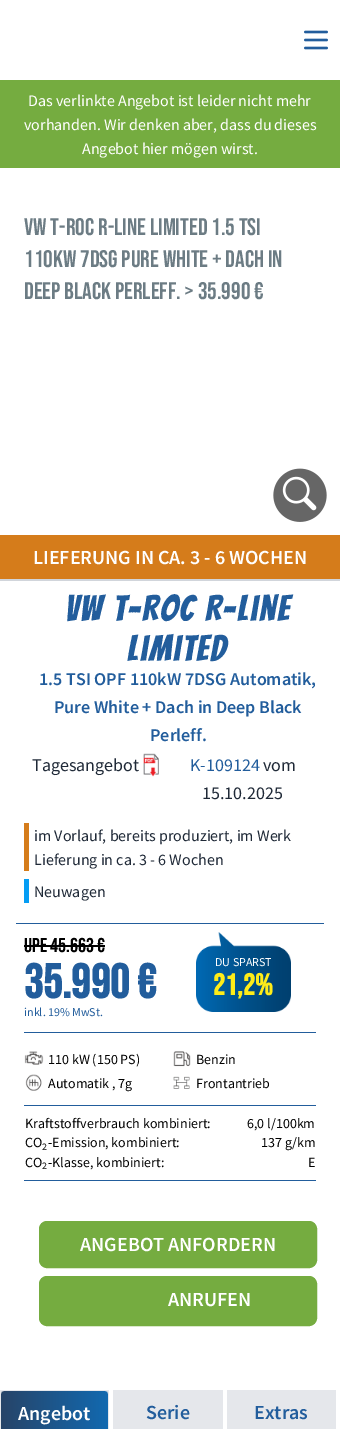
%!PS-Adobe-3.0
%%BoundingBox: 0 0 340 1429
%%LanguageLevel: 3
%%Pages: 1
%%EndComments
%%BeginProlog
/setink { 3 { 255 div 3 1 roll } repeat setrgbcolor } def
/usefont { [ exch dup neg 0 0 3 -1 roll 0 0 ] selectfont } def
/drawtext { setink usefont moveto show } def
/fillbox { setink rectfill } def
/rrect { 5 dict begin { /r /h /w /y /x } { exch def } forall
  x r add y moveto x w add y 2 copy h add r arct x w add y h add x 1 index r arct
  x y h add x y r arct x y 2 copy exch w add exch r arct closepath end } def
/drawimage { 5 dict begin { /h /w /y /x /name } { exch def } forall
  gsave x y translate w h scale
  w h 8 [w 0 0 h 0 0] name (r) file false 3 colorimage grestore end } def
%%EndProlog
%%BeginSetup
<< /PageSize [340 1429] >> setpagedevice
%%EndSetup
%%Page: 1 1
0 1429 translate 1 -1 scale
4 setmiterlimit
0 0 340 1429 255 255 255 fillbox
(assets/img1.rgb) 304 30 24 20 drawimage
0 80 340 88 117 172 64 fillbox
(Das verlinkte Angebot ist leider nicht mehr) 28 106 /SourceSansPro-Regular 16 255 255 255 drawtext
(vorhanden. Wir denken aber, dass du dieses) 24 130 /SourceSansPro-Regular 16 255 255 255 drawtext
(Angebot hier mögen wirst.) 82 154 /SourceSansPro-Regular 16 255 255 255 drawtext
(VW T-ROC R-LINE LIMITED 1.5 TSI) 24 235 /BebasNeue-Regular 24 108 124 132 drawtext
(110KW 7DSG PURE WHITE + DACH IN) 24 267 /BebasNeue-Regular 24 108 124 132 drawtext
(DEEP BLACK PERLEFF. > 35.990 €) 24 299 /BebasNeue-Regular 24 108 124 132 drawtext
(assets/img2.rgb) 273 468 54 54 drawimage
0 535 340 44 213 124 27 fillbox
(LIEFERUNG IN CA. 3 - 6 WOCHEN) 33 564 /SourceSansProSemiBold-SemiBold 20 255 255 255 drawtext
0 579 340 2 209 213 219 fillbox
/Bangers-Regular 36 usefont
34 93 156 setink
65 621 moveto 1.75 0 (VW T-ROC R-Line) ashow
127 661 moveto 1.75 0 (Limited) ashow
(1.5 TSI OPF 110kW 7DSG Automatik,) 39 685 /SourceSansProSemiBold-SemiBold 18 34 93 156 drawtext
(Pure White + Dach in Deep Black) 54 713 /SourceSansProSemiBold-SemiBold 18 34 93 156 drawtext
(Perleff.) 150 741 /SourceSansProSemiBold-SemiBold 18 34 93 156 drawtext
(Tagesangebot) 32 771 /SourceSansPro-Regular 18 31 41 55 drawtext
(assets/img3.rgb) 143 753 16 24 drawimage
(K-109124) 190 771 /SourceSansPro-Regular 18 34 93 156 drawtext
(vom) 263 771 /SourceSansPro-Regular 18 31 41 55 drawtext
(15.10.2025) 202 799 /SourceSansPro-Regular 18 31 41 55 drawtext
24 823 5 48 213 124 27 fillbox
(im Vorlauf, bereits produziert, im Werk) 34 841 /SourceSansPro-Regular 16 31 41 55 drawtext
(Lieferung in ca. 3 - 6 Wochen) 34 865 /SourceSansPro-Regular 16 31 41 55 drawtext
24 879 5 24 5 157 244 fillbox
(Neuwagen) 34 897 /SourceSansPro-Regular 16 31 41 55 drawtext
16 923 308 1 34 93 156 fillbox
24 1032 292 1 34 93 156 fillbox
(UPE 45.663 €) 24 952 /BebasNeue-Regular 20 0 0 0 drawtext
24 945 81 2 0 0 0 fillbox
(35.990 €) 24 998 /BebasNeue-Bold 48 34 93 156 drawtext
(inkl. 19% MwSt.) 24 1016 /SourceSansPro-Regular 12 34 93 156 drawtext
(assets/img4.rgb) 196 932 95 80 drawimage
(DU SPARST) 215 966 /SourceSansPro-Regular 12 255 255 255 drawtext
(21,2%) 213 995 /BebasNeue-Bold 30 254 236 25 drawtext
24 1105 292 1 34 93 156 fillbox
(assets/img5.rgb) 24 1051 20 14 drawimage
(110 kW \(150 PS\)) 48 1064 /SourceSansPro-Regular 14 0 0 0 drawtext
(assets/img6.rgb) 173 1051 18 16 drawimage
(Benzin) 196 1064 /SourceSansPro-Regular 14 0 0 0 drawtext
(assets/img7.rgb) 25 1074 17 17 drawimage
(Automatik , 7g) 48 1088 /SourceSansPro-Regular 14 0 0 0 drawtext
(assets/img8.rgb) 173 1076 17 13 drawimage
(Frontantrieb) 196 1088 /SourceSansPro-Regular 14 0 0 0 drawtext
24 1180 292 1 34 93 156 fillbox
(Kraftstoffverbrauch kombiniert:) 25 1128 /SourceSansPro-Regular 14 0 0 0 drawtext
(6,0 l/100km) 247 1128 /SourceSansPro-Regular 14 0 0 0 drawtext
(CO) 25 1147 /SourceSansPro-Regular 14 0 0 0 drawtext
(2) 42 1150 /SourceSansPro-Regular 10 0 0 0 drawtext
(-Emission, kombiniert:) 48 1147 /SourceSansPro-Regular 14 0 0 0 drawtext
(137 g/km) 261 1147 /SourceSansPro-Regular 14 0 0 0 drawtext
(CO) 25 1167 /SourceSansPro-Regular 14 0 0 0 drawtext
(2) 42 1169 /SourceSansPro-Regular 10 0 0 0 drawtext
(-Klasse, kombiniert:) 48 1167 /SourceSansPro-Regular 14 0 0 0 drawtext
(E) 308 1167 /SourceSansPro-Regular 14 0 0 0 drawtext
117 172 64 setink
39.5 1221.5 277 46 7.5 rrect gsave fill grestore
stroke
(ANGEBOT ANFORDERN) 80 1251 /SourceSansProSemiBold-SemiBold 20 255 255 255 drawtext
117 172 64 setink
39.5 1276.5 277 49 7.5 rrect gsave fill grestore
stroke
(ANRUFEN) 168 1306 /SourceSansProSemiBold-SemiBold 20 255 255 255 drawtext
0 1390 109 4 229 231 235 fillbox
gsave 4 1391 moveto 105 1391 lineto 106.5 1391 108 1392.5 108 1394 curveto 108 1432 lineto 1 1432 lineto 1 1394 lineto 1 1392.5 2.5 1391 4 1391 curveto closepath clip newpath
<< /ShadingType 2 /ColorSpace /DeviceRGB /Coords [1 1413 108 1413] /Extend [true true] /Function << /FunctionType 2 /Domain [0 1] /C0 [0.153 0.267 0.408] /C1 [0.071 0.412 0.69] /N 1 >> >> shfill grestore
4 1390 moveto 105 1390 lineto 107 1390 109 1392 109 1394 curveto 109 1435 lineto 0 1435 lineto 0 1394 lineto 0 1392 2 1390 4 1390 curveto closepath 4 1391 moveto 105 1391 lineto 107 1391 108 1392 108 1394 curveto 108 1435 lineto 1 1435 lineto 1 1394 lineto 1 1392 2 1391 4 1391 curveto closepath eofill
(Angebot) 18 1420 /SourceSansProSemiBold-SemiBold 20 255 255 255 drawtext
113 1390 110 39 229 231 235 fillbox
(Serie) 146 1419 /SourceSansProSemiBold-SemiBold 20 34 93 156 drawtext
227 1390 109 39 229 231 235 fillbox
(Extras) 254 1419 /SourceSansProSemiBold-SemiBold 20 34 93 156 drawtext
showpage
%%EOF
